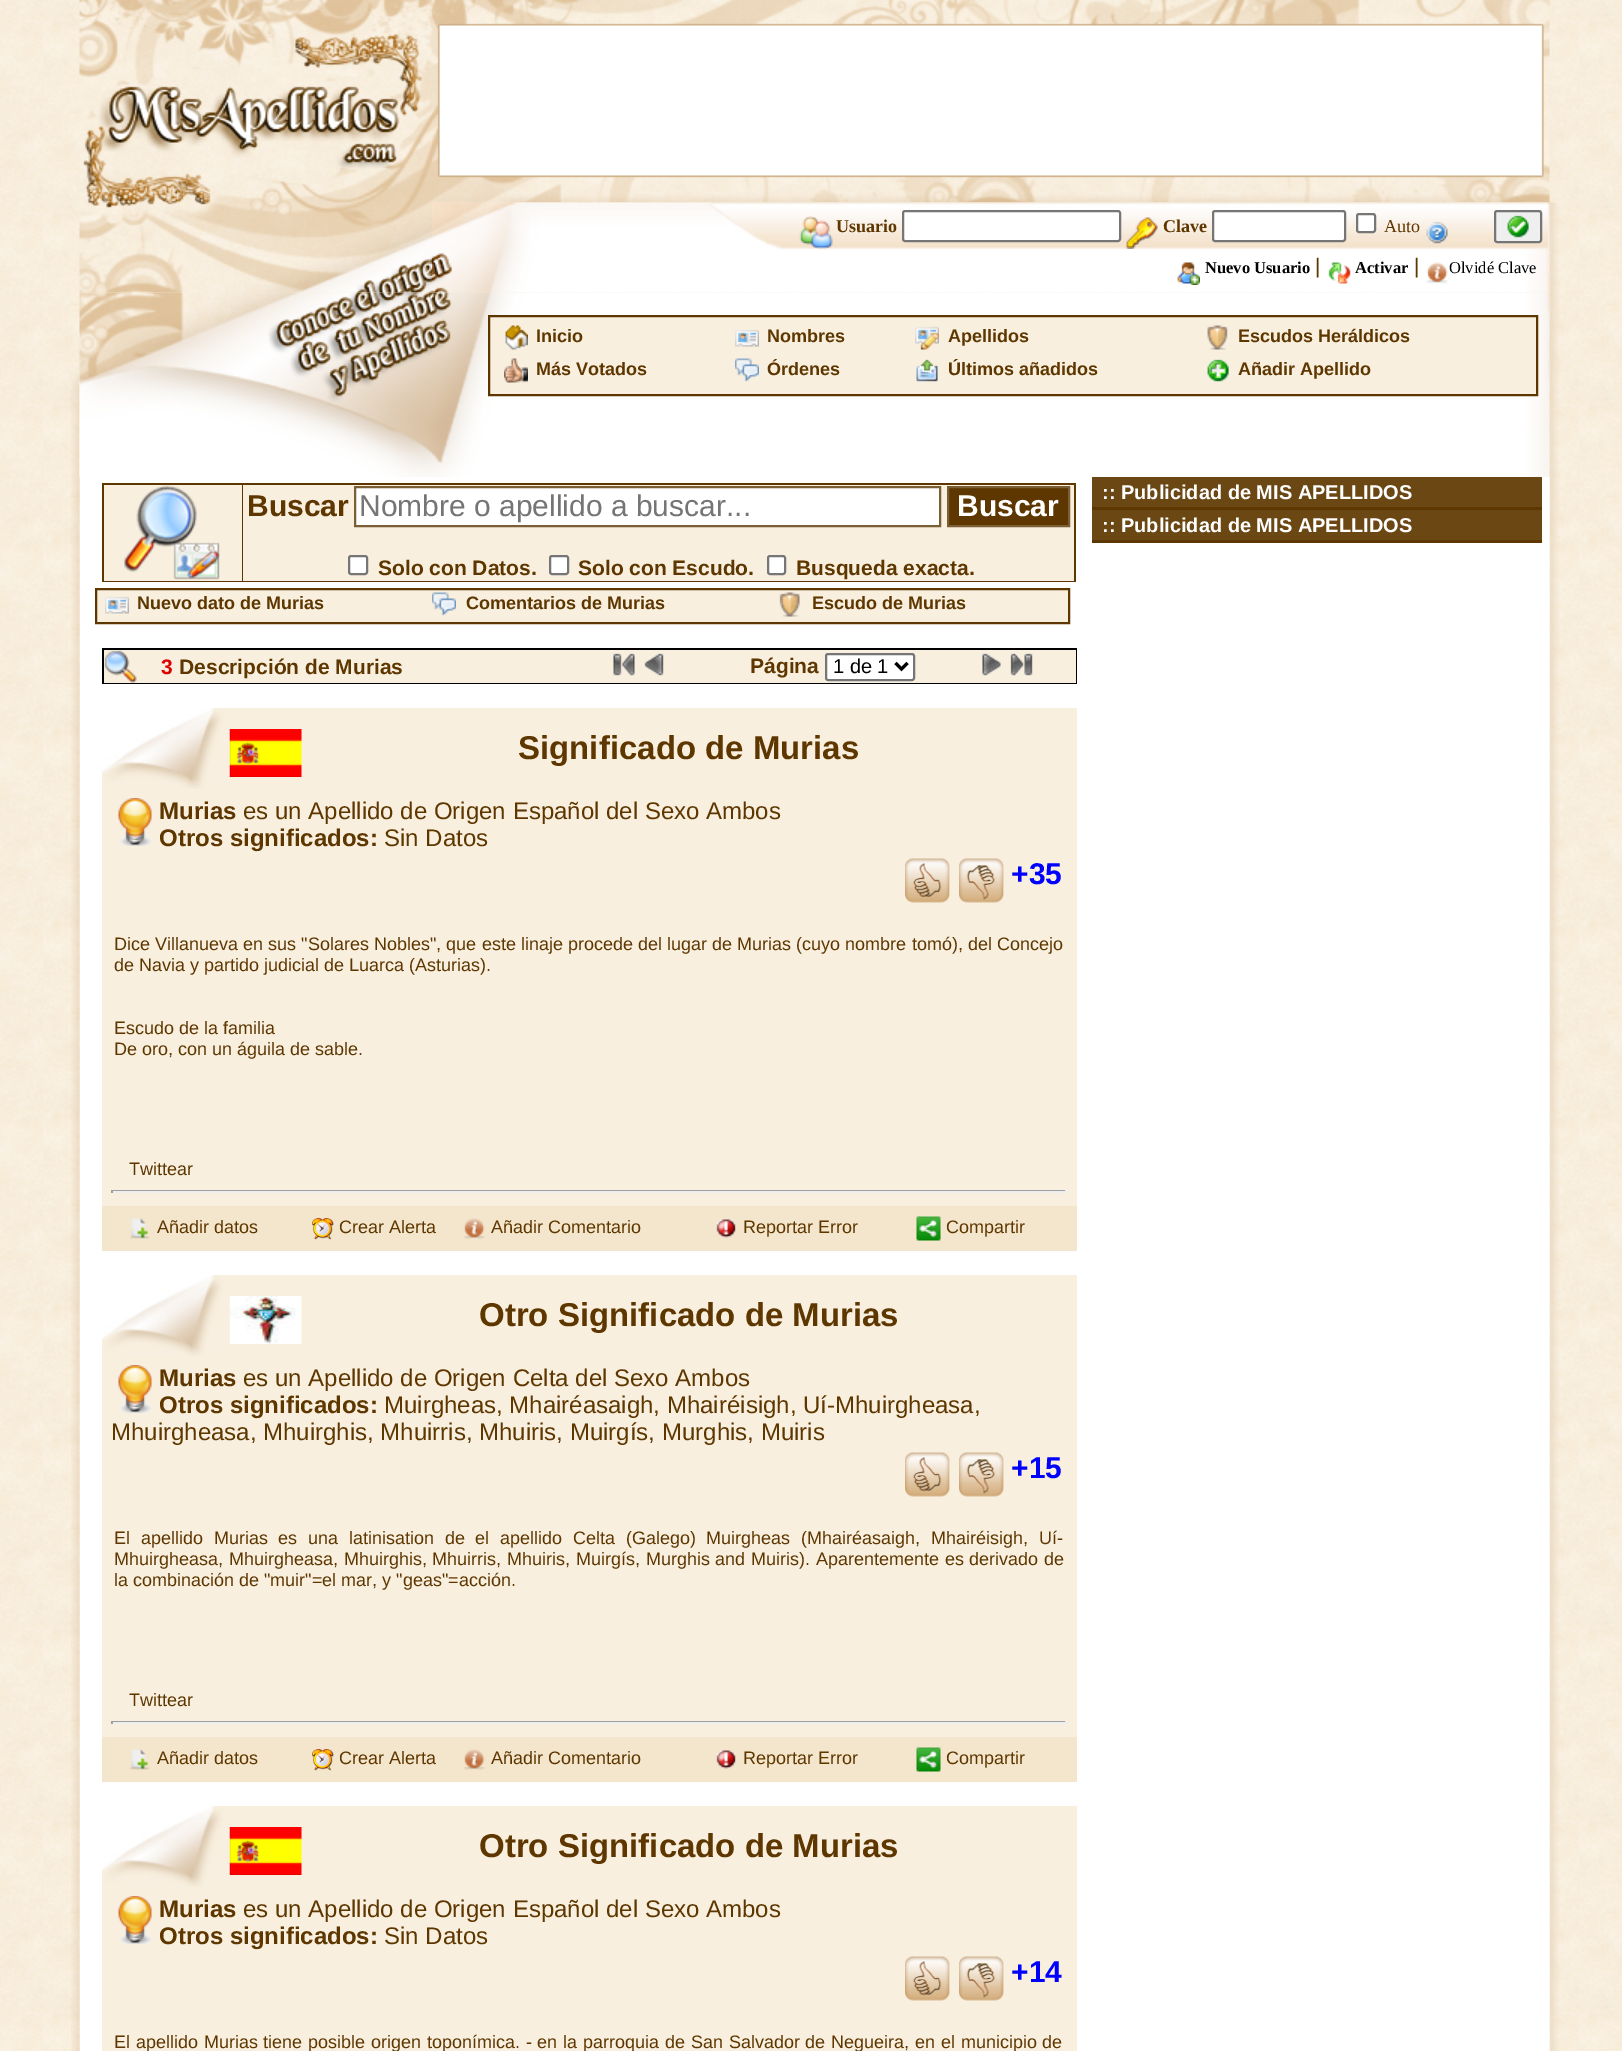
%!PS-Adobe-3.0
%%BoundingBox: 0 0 1622 2051
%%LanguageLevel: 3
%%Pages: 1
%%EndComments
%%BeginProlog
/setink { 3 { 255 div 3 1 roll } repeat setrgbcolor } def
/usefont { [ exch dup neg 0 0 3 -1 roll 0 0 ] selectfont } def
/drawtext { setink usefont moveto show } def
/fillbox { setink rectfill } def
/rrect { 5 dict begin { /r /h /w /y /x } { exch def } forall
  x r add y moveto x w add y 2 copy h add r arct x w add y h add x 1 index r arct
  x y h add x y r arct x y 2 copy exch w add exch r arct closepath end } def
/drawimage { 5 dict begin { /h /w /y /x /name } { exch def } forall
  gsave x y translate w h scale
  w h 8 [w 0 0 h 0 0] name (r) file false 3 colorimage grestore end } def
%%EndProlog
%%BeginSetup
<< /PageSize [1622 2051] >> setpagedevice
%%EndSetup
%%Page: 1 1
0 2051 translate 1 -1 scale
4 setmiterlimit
0 0 1622 2051 255 255 255 fillbox
(assets/img1.rgb) 0 0 1622 2051 drawimage
(assets/img2.rgb) 79 0 353 293 drawimage
(assets/img3.rgb) 432 0 1118 203 drawimage
(assets/img4.rgb) 432 202 1118 91 drawimage
(assets/img5.rgb) 799 216 34 33 drawimage
(Usuario) 836 232 /LiberationSerif-Bold 18 94 55 0 drawtext
255 255 255 setink
903 211 217 30 2 rrect gsave fill grestore
118 118 118 setink
2 setlinewidth
stroke
(assets/img6.rgb) 1126 217 32 32 drawimage
(Clave) 1163 232 /LiberationSerif-Bold 18 94 55 0 drawtext
255 255 255 setink
1213 211 132 30 2 rrect gsave fill grestore
118 118 118 setink
stroke
255 255 255 setink
1357 214 18 18 2 rrect gsave fill grestore
118 118 118 setink
stroke
(Auto) 1384 232 /LiberationSerif-Regular 18 94 55 0 drawtext
(assets/img7.rgb) 1426 221 22 23 drawimage
239 239 239 setink
1495 211 46 31 2 rrect gsave fill grestore
118 118 118 setink
stroke
(assets/img8.rgb) 1507 215 22 23 drawimage
(assets/img9.rgb) 1177 262 23 23 drawimage
(Nuevo Usuario) 1205 273 /LiberationSerif-Bold 16.5 0 0 0 drawtext
(|) 1315 273 /LiberationSans-Regular 21 94 55 0 drawtext
(assets/img10.rgb) 1328 262 23 22 drawimage
(Activar) 1355 273 /LiberationSerif-Bold 16.5 0 0 0 drawtext
(|) 1414 273 /LiberationSans-Regular 21 94 55 0 drawtext
(assets/img11.rgb) 1426 262 22 22 drawimage
(Olvidé Clave) 1449 273 /LiberationSerif-Regular 16.5 0 0 0 drawtext
(assets/img12.rgb) 1549 202 10 91 drawimage
(assets/img24.rgb) 70 373 10 104 drawimage
(assets/img13.rgb) 79 292 353 185 drawimage
(assets/img14.rgb) 432 292 1118 185 drawimage
248 239 223 setink
489 316 moveto 1537 316 lineto 1537 395 lineto 489 395 lineto closepath gsave fill grestore
94 55 0 setink
stroke
(assets/img15.rgb) 505 325 23 25 drawimage
(Inicio) 536 342 /LiberationSans-Bold 18 94 55 0 drawtext
(assets/img16.rgb) 735 329 24 18 drawimage
(Nombres) 767 342 /LiberationSans-Bold 18 94 55 0 drawtext
(assets/img17.rgb) 915 326 24 24 drawimage
(Apellidos) 948 342 /LiberationSans-Bold 18 94 55 0 drawtext
(assets/img18.rgb) 1207 325 21 25 drawimage
(Escudos Heráldicos) 1238 342 /LiberationSans-Bold 18 94 55 0 drawtext
(assets/img19.rgb) 504 358 24 25 drawimage
(Más Votados) 536 375 /LiberationSans-Bold 18 94 55 0 drawtext
(assets/img20.rgb) 735 358 24 24 drawimage
(Órdenes) 767 375 /LiberationSans-Bold 18 94 55 0 drawtext
(assets/img21.rgb) 916 359 22 23 drawimage
(Últimos añadidos) 948 375 /LiberationSans-Bold 18 94 55 0 drawtext
(assets/img22.rgb) 1207 359 22 23 drawimage
(Añadir Apellido) 1238 375 /LiberationSans-Bold 18 94 55 0 drawtext
(assets/img23.rgb) 1549 292 10 185 drawimage
(assets/img25.rgb) 71 477 9 1574 drawimage
80 477 1470 1574 255 255 255 fillbox
102 483 974 99 94 55 0 fillbox
104 485 138 96 248 239 223 fillbox
(assets/img26.rgb) 124 485 96 95 drawimage
243 485 831 96 248 239 223 fillbox
(Buscar) 247 516 /LiberationSans-Bold 30 94 55 0 drawtext
255 255 255 setink
355 487 moveto 940 487 lineto 940 526 lineto 355 526 lineto closepath gsave fill grestore
124 94 52 setink
stroke
(Nombre o apellido a buscar...) 359 516 /LiberationSans-Regular 30 117 117 117 drawtext
94 55 0 setink
948 487 moveto 1069 487 lineto 1069 526 lineto 948 526 lineto closepath gsave fill grestore
124 94 52 setink
stroke
(Buscar) 957 516 /LiberationSans-Bold 30 255 255 255 drawtext
349 556 18 18 2 rrect gsave fill grestore
118 118 118 setink
stroke
(Solo con Datos.) 378 575 /LiberationSans-Bold 21 94 55 0 drawtext
255 255 255 setink
550 556 18 18 2 rrect gsave fill grestore
118 118 118 setink
stroke
(Solo con Escudo.) 578 575 /LiberationSans-Bold 21 94 55 0 drawtext
255 255 255 setink
768 556 17 18 2 rrect gsave fill grestore
118 118 118 setink
stroke
(Busqueda exacta.) 796 575 /LiberationSans-Bold 21 94 55 0 drawtext
248 239 223 setink
96 589 moveto 1069 589 lineto 1069 623 lineto 96 623 lineto closepath gsave fill grestore
94 55 0 setink
stroke
(assets/img27.rgb) 105 596 24 18 drawimage
(Nuevo dato de Murias) 137 609 /LiberationSans-Bold 18 94 55 0 drawtext
(assets/img20.rgb) 432 592 24 24 drawimage
(Comentarios de Murias) 466 609 /LiberationSans-Bold 18 94 55 0 drawtext
(assets/img28.rgb) 779 592 21 25 drawimage
(Escudo de Murias) 812 609 /LiberationSans-Bold 18 94 55 0 drawtext
102 648 975 36 0 0 0 fillbox
104 650 972 33 248 239 223 fillbox
(assets/img29.rgb) 104 650 33 33 drawimage
(3) 161 674 /LiberationSans-Bold 21 221 0 0 drawtext
(Descripción de Murias) 179 674 /LiberationSans-Bold 21 94 55 0 drawtext
(assets/img30.rgb) 613 653 22 23 drawimage
(assets/img31.rgb) 644 653 20 23 drawimage
(Página) 750 673 /LiberationSans-Bold 21 94 55 0 drawtext
255 255 255 setink
826 654 88 26 2 rrect gsave fill grestore
118 118 118 setink
stroke
0 0 0 setink
3 setlinewidth
895.5 663 moveto 901.5 669 lineto 907.5 663 lineto stroke
(1 de 1) 833 673 /LiberationSans-Regular 20 0 0 0 drawtext
(assets/img32.rgb) 982 653 19 23 drawimage
(assets/img33.rgb) 1010 653 23 23 drawimage
102 708 975 498 248 239 223 fillbox
(assets/img35.rgb) 229 729 73 48 drawimage
(assets/img34.rgb) 102 708 128 81 drawimage
(Significado de Murias) 518 759 /LiberationSans-Bold 33 94 55 0 drawtext
(assets/img36.rgb) 118 798 34 48 drawimage
(Murias) 159 819 /LiberationSans-Bold 24 94 55 0 drawtext
(es un Apellido de Origen Español del Sexo Ambos) 243 819 /LiberationSans-Regular 24 94 55 0 drawtext
(Otros significados:) 159 846 /LiberationSans-Bold 24 94 55 0 drawtext
(Sin Datos) 384 846 /LiberationSans-Regular 24 94 55 0 drawtext
(assets/img37.rgb) 905 858 45 45 drawimage
(assets/img38.rgb) 959 858 45 45 drawimage
(+35) 1011 884 /LiberationSans-Bold 30 0 0 255 drawtext
/LiberationSans-Regular 18 usefont
94 55 0 setink
114 950 moveto 0.1 0 32 (Dice Villanueva en sus "Solares Nobles", que este linaje procede del lugar de Murias \(cuyo nombre tomó\), del Concejo) widthshow
(de Navia y partido judicial de Luarca \(Asturias\).) 114 971 /LiberationSans-Regular 18 94 55 0 drawtext
(Escudo de la familia) 114 1034 /LiberationSans-Regular 18 94 55 0 drawtext
(De oro, con un águila de sable.) 114 1055 /LiberationSans-Regular 18 94 55 0 drawtext
(Twittear) 129 1175 /LiberationSans-Regular 18 94 55 0 drawtext
111 1190 956 1 159 159 159 fillbox
1065 1190 2 3 238 238 238 fillbox
111 1191 956 2 238 238 238 fillbox
111 1190 2 3 159 159 159 fillbox
102 1206 975 45 244 230 204 fillbox
(assets/img39.rgb) 130 1218 20 21 drawimage
(Añadir datos) 157 1233 /LiberationSans-Regular 18 94 55 0 drawtext
(assets/img40.rgb) 312 1218 22 22 drawimage
(Crear Alerta) 339 1233 /LiberationSans-Regular 18 94 55 0 drawtext
(assets/img41.rgb) 463 1218 22 21 drawimage
(Añadir Comentario) 491 1233 /LiberationSans-Regular 18 94 55 0 drawtext
(assets/img42.rgb) 716 1219 20 19 drawimage
(Reportar Error) 743 1233 /LiberationSans-Regular 18 94 55 0 drawtext
(assets/img43.rgb) 916 1216 25 25 drawimage
(Compartir) 946 1233 /LiberationSans-Regular 18 94 55 0 drawtext
102 1275 975 462 248 239 223 fillbox
(assets/img45.rgb) 229 1296 73 48 drawimage
(assets/img44.rgb) 102 1275 128 81 drawimage
(Otro Significado de Murias) 479 1326 /LiberationSans-Bold 33 94 55 0 drawtext
(assets/img36.rgb) 118 1365 34 48 drawimage
(Murias) 159 1386 /LiberationSans-Bold 24 94 55 0 drawtext
(es un Apellido de Origen Celta del Sexo Ambos) 243 1386 /LiberationSans-Regular 24 94 55 0 drawtext
(Otros significados:) 159 1413 /LiberationSans-Bold 24 94 55 0 drawtext
(Muirgheas, Mhairéasaigh, Mhairéisigh, Uí-Mhuirgheasa,) 384 1413 /LiberationSans-Regular 24 94 55 0 drawtext
(Mhuirgheasa, Mhuirghis, Mhuirris, Mhuiris, Muirgís, Murghis, Muiris) 111 1440 /LiberationSans-Regular 24 94 55 0 drawtext
(assets/img37.rgb) 905 1452 45 45 drawimage
(assets/img38.rgb) 959 1452 45 45 drawimage
(+15) 1011 1478 /LiberationSans-Bold 30 0 0 255 drawtext
/LiberationSans-Regular 18 usefont
94 55 0 setink
114 1544 moveto 5.75 0 32 (El apellido Murias es una latinisation de el apellido Celta \(Galego\) Muirgheas \(Mhairéasaigh, Mhairéisigh, Uí-) widthshow
114 1565 moveto 0.75 0 32 (Mhuirgheasa, Mhuirgheasa, Mhuirghis, Mhuirris, Mhuiris, Muirgís, Murghis and Muiris\). Aparentemente es derivado de) widthshow
(la combinación de "muir"=el mar, y "geas"=acción.) 114 1586 /LiberationSans-Regular 18 94 55 0 drawtext
(Twittear) 129 1706 /LiberationSans-Regular 18 94 55 0 drawtext
111 1721 956 1 159 159 159 fillbox
1065 1721 2 3 238 238 238 fillbox
111 1722 956 2 238 238 238 fillbox
111 1721 2 3 159 159 159 fillbox
102 1737 975 45 244 230 204 fillbox
(assets/img39.rgb) 130 1749 20 21 drawimage
(Añadir datos) 157 1764 /LiberationSans-Regular 18 94 55 0 drawtext
(assets/img40.rgb) 312 1749 22 22 drawimage
(Crear Alerta) 339 1764 /LiberationSans-Regular 18 94 55 0 drawtext
(assets/img41.rgb) 463 1749 22 21 drawimage
(Añadir Comentario) 491 1764 /LiberationSans-Regular 18 94 55 0 drawtext
(assets/img42.rgb) 716 1750 20 19 drawimage
(Reportar Error) 743 1764 /LiberationSans-Regular 18 94 55 0 drawtext
(assets/img43.rgb) 916 1747 25 25 drawimage
(Compartir) 946 1764 /LiberationSans-Regular 18 94 55 0 drawtext
102 1806 975 245 248 239 223 fillbox
(assets/img47.rgb) 229 1827 73 48 drawimage
(assets/img46.rgb) 102 1806 128 81 drawimage
(Otro Significado de Murias) 479 1857 /LiberationSans-Bold 33 94 55 0 drawtext
(assets/img36.rgb) 118 1896 34 48 drawimage
(Murias) 159 1917 /LiberationSans-Bold 24 94 55 0 drawtext
(es un Apellido de Origen Español del Sexo Ambos) 243 1917 /LiberationSans-Regular 24 94 55 0 drawtext
(Otros significados:) 159 1944 /LiberationSans-Bold 24 94 55 0 drawtext
(Sin Datos) 384 1944 /LiberationSans-Regular 24 94 55 0 drawtext
(assets/img37.rgb) 905 1956 45 45 drawimage
(assets/img38.rgb) 959 1956 45 45 drawimage
(+14) 1011 1982 /LiberationSans-Bold 30 0 0 255 drawtext
/LiberationSans-Regular 18 usefont
94 55 0 setink
114 2048 moveto 0.8 0 32 (El apellido Murias tiene posible origen toponímica. - en la parroquia de San Salvador de Negueira, en el municipio de) widthshow
1092 477 450 30 107 71 20 fillbox
(:: Publicidad de MIS APELLIDOS) 1102 499 /LiberationSans-Bold 20 255 255 255 drawtext
1092 507 450 3 94 55 0 fillbox
1092 510 450 30 107 71 20 fillbox
(:: Publicidad de MIS APELLIDOS) 1102 532 /LiberationSans-Bold 20 255 255 255 drawtext
1092 540 450 3 94 55 0 fillbox
(assets/img48.rgb) 1549 477 10 1574 drawimage
showpage
%%EOF
